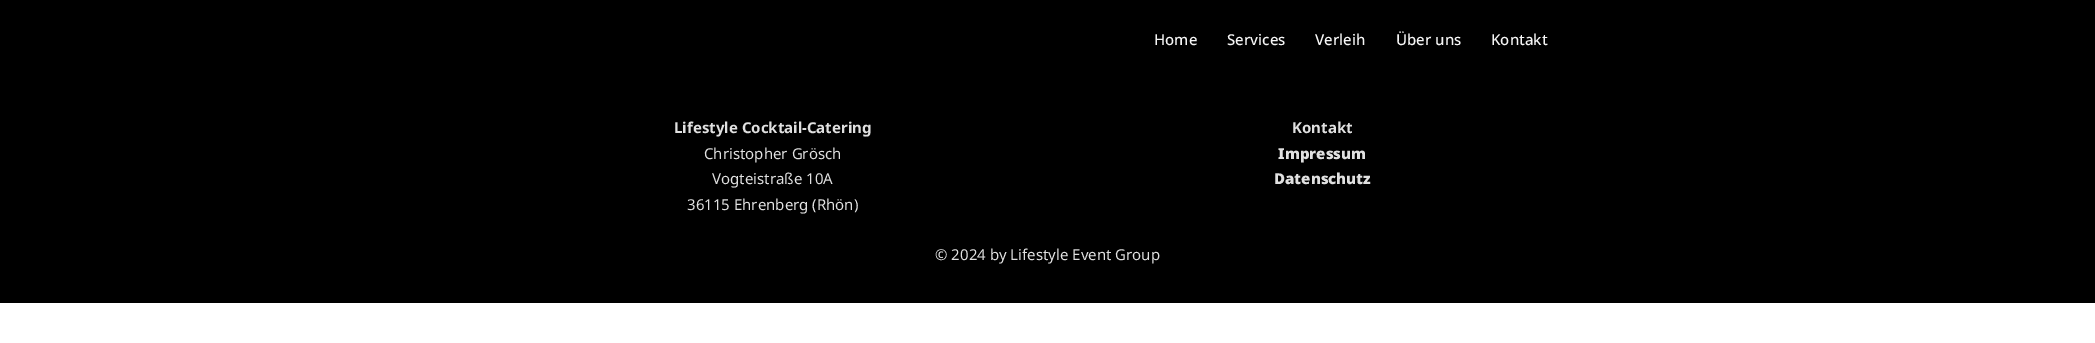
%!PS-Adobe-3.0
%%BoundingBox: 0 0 2095 343
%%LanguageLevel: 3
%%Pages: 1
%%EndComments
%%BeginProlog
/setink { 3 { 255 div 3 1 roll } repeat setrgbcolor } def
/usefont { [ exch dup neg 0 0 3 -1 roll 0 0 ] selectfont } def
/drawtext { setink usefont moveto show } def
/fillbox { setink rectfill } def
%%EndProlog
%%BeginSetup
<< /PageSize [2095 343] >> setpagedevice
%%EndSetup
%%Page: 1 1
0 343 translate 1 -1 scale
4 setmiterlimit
0 0 2095 343 255 255 255 fillbox
0 0 2095 303 0 0 0 fillbox
(Home) 1154 45 /NotoSans-Medium 15 245 245 245 drawtext
(Services) 1227 45 /NotoSans-Medium 15 245 245 245 drawtext
(Verleih) 1315 45 /NotoSans-Medium 15 245 245 245 drawtext
(Über uns) 1396 45 /NotoSans-Medium 15 245 245 245 drawtext
(Kontakt) 1491 45 /NotoSans-Medium 15 245 245 245 drawtext
(Lifestyle Cocktail-Catering) 674 133 /NotoSans-Bold 15 224 224 224 drawtext
(Christopher Grösch) 704 159 /NotoSans-Regular 15 224 224 224 drawtext
(Vogteistraße 10A) 712 184 /NotoSans-Regular 15 224 224 224 drawtext
(36115 Ehrenberg \(Rhön\)) 687 210 /NotoSans-Regular 15 224 224 224 drawtext
(Kontakt) 1292 133 /NotoSans-Bold 15 224 224 224 drawtext
(Impressum) 1278 159 /NotoSans-Black 15 224 224 224 drawtext
(Datenschutz) 1274 184 /NotoSans-Black 15 224 224 224 drawtext
(© 2024 by Lifestyle Event Group) 935 260 /NotoSans-Regular 15 224 224 224 drawtext
showpage
%%EOF
